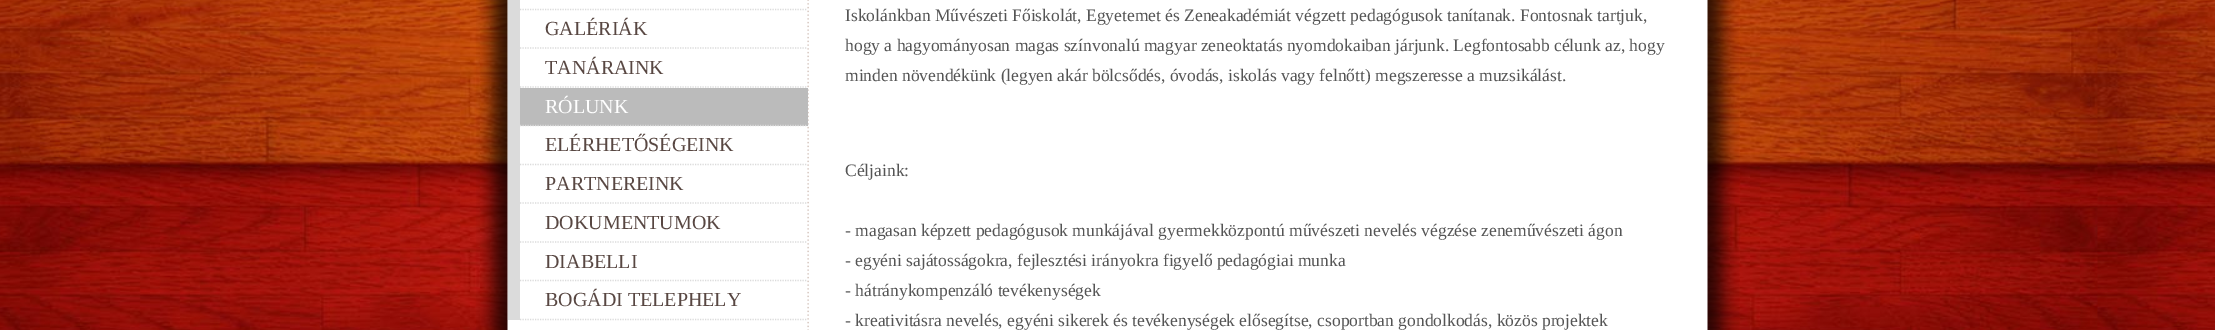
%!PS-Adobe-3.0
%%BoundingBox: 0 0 2215 330
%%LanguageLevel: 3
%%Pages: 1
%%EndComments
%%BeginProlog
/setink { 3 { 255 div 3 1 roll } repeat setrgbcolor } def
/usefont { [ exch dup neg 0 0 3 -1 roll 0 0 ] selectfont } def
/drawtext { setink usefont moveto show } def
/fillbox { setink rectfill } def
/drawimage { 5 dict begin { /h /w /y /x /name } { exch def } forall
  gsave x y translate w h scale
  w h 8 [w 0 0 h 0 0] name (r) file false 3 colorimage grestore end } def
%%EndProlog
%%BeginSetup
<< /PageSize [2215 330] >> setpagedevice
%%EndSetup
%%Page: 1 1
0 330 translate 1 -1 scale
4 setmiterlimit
0 0 2215 330 255 255 255 fillbox
(assets/img1.rgb) 0 0 2215 330 drawimage
(assets/img2.rgb) 476 0 1263 330 drawimage
508 0 12 320 219 219 219 fillbox
1.2 setlinewidth
[1.25 1.25] 0 setdash
520 9.5 moveto 807.5 9.5 lineto stroke
520 48 moveto 807.5 48 lineto stroke
(GALÉRIÁK) 545 35 /LiberationSerif-Regular 20 88 71 66 drawtext
219 219 219 setink
520 87 moveto 807.5 87 lineto stroke
(TANÁRAINK) 545 74 /LiberationSerif-Regular 20 88 71 66 drawtext
520 88 288 38 187 187 187 fillbox
219 219 219 setink
520 125.5 moveto 807.5 125.5 lineto stroke
(RÓLUNK) 545 113 /LiberationSerif-Regular 20 255 255 255 drawtext
219 219 219 setink
520 164.5 moveto 807.5 164.5 lineto stroke
(ELÉRHETŐSÉGEINK) 545 151 /LiberationSerif-Regular 20 88 71 66 drawtext
219 219 219 setink
520 203 moveto 807.5 203 lineto stroke
(PARTNEREINK) 545 190 /LiberationSerif-Regular 20 88 71 66 drawtext
219 219 219 setink
520 242 moveto 807.5 242 lineto stroke
(DOKUMENTUMOK) 545 229 /LiberationSerif-Regular 20 88 71 66 drawtext
219 219 219 setink
520 280.5 moveto 807.5 280.5 lineto stroke
(DIABELLI) 545 268 /LiberationSerif-Regular 20 88 71 66 drawtext
219 219 219 setink
520 319.5 moveto 807.5 319.5 lineto stroke
(BOGÁDI TELEPHELY) 545 306 /LiberationSerif-Regular 20 88 71 66 drawtext
(Iskolánkban Művészeti Főiskolát, Egyetemet és Zeneakadémiát végzett pedagógusok tanítanak. Fontosnak tartjuk,) 845 21 /LiberationSerif-Regular 17.5 85 85 85 drawtext
(hogy a hagyományosan magas színvonalú magyar zeneoktatás nyomdokaiban járjunk. Legfontosabb célunk az, hogy) 845 51 /LiberationSerif-Regular 17.5 85 85 85 drawtext
(minden növendékünk \(legyen akár bölcsődés, óvodás, iskolás vagy felnőtt\) megszeresse a muzsikálást.) 845 81 /LiberationSerif-Regular 17.5 85 85 85 drawtext
(Céljaink:) 845 176 /LiberationSerif-Regular 17.5 85 85 85 drawtext
(- magasan képzett pedagógusok munkájával gyermekközpontú művészeti nevelés végzése zeneművészeti ágon) 845 236 /LiberationSerif-Regular 17.5 85 85 85 drawtext
(- egyéni sajátosságokra, fejlesztési irányokra figyelő pedagógiai munka) 845 266 /LiberationSerif-Regular 17.5 85 85 85 drawtext
(- hátránykompenzáló tevékenységek) 845 296 /LiberationSerif-Regular 17.5 85 85 85 drawtext
(- kreativitásra nevelés, egyéni sikerek és tevékenységek elősegítse, csoportban gondolkodás, közös projektek) 845 326 /LiberationSerif-Regular 17.5 85 85 85 drawtext
showpage
%%EOF
